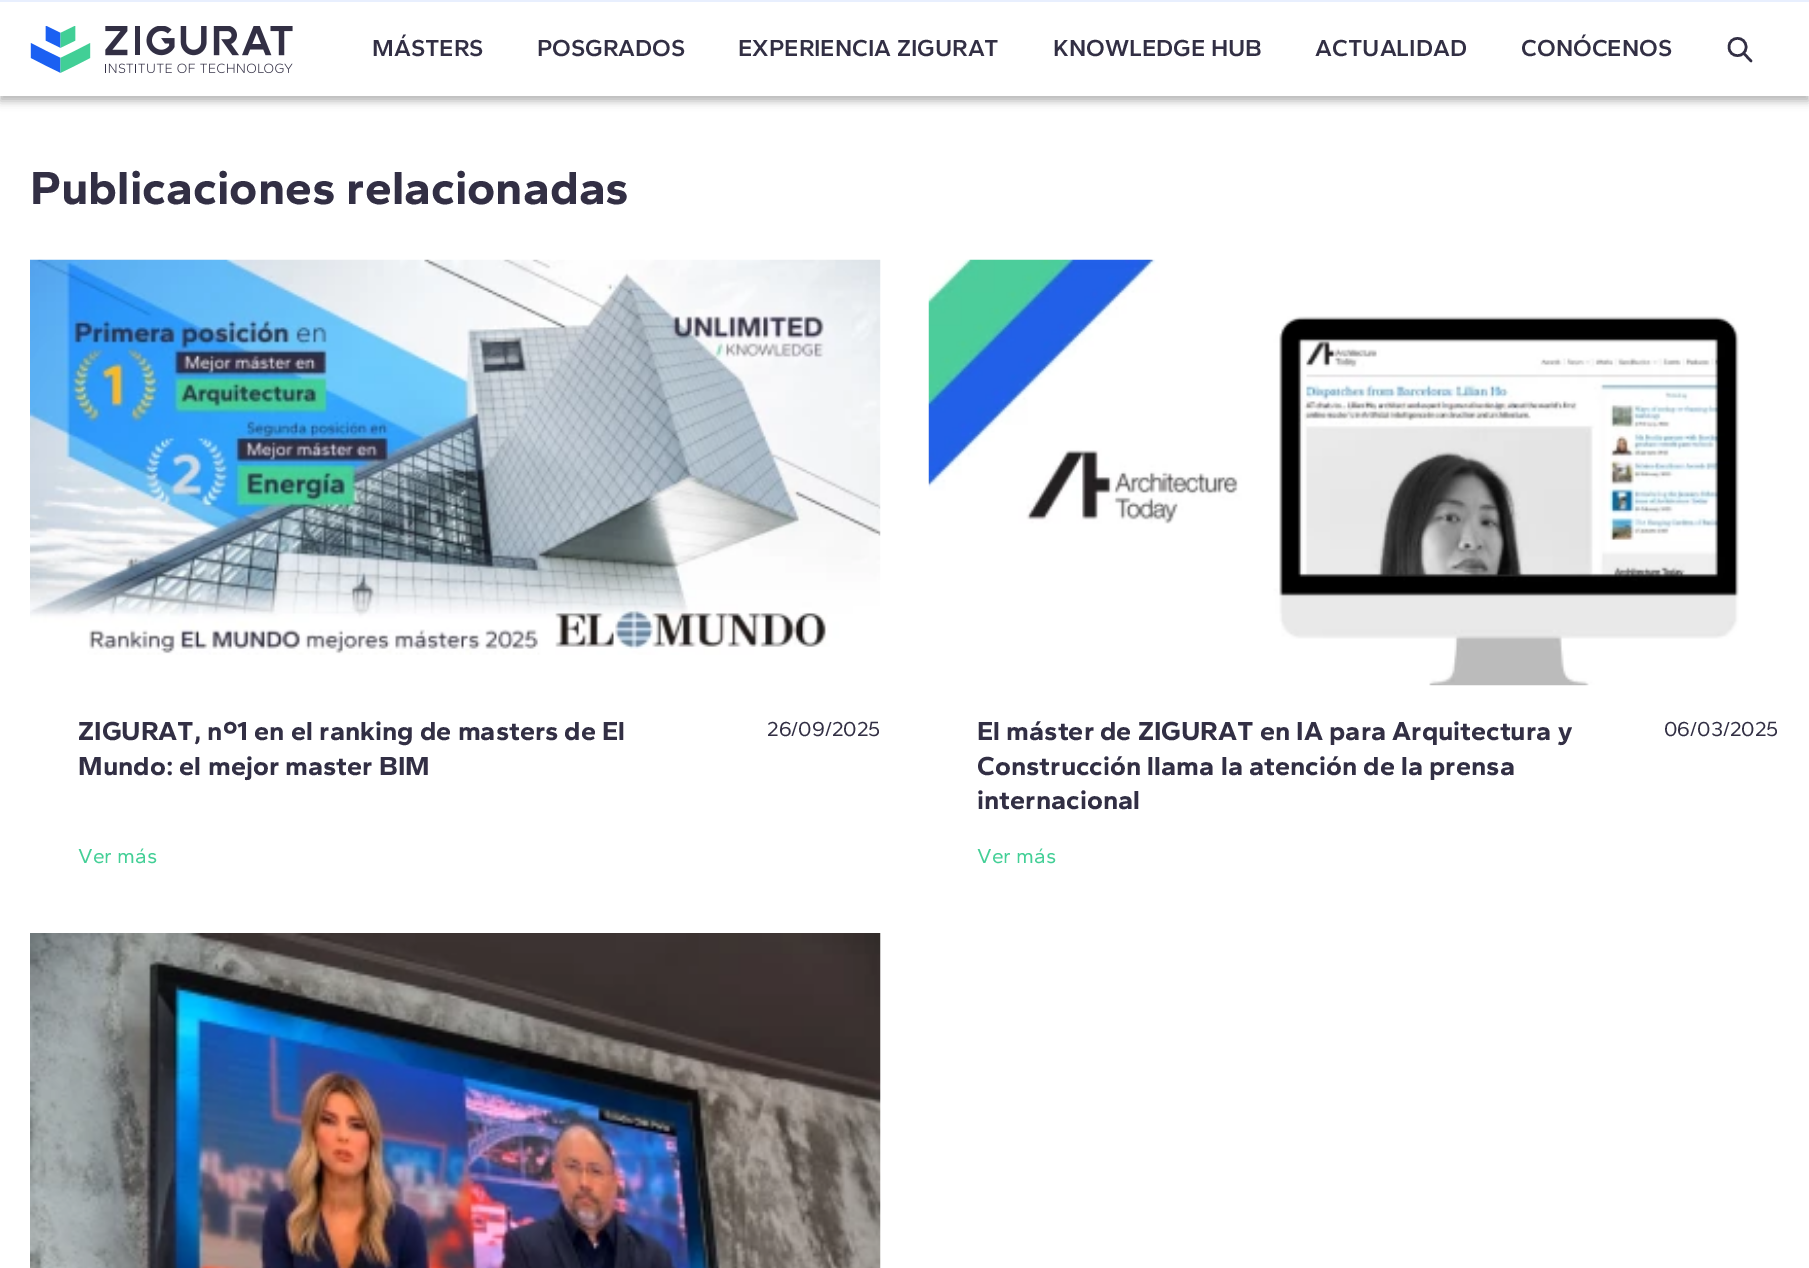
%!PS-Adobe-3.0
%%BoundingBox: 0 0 1809 1268
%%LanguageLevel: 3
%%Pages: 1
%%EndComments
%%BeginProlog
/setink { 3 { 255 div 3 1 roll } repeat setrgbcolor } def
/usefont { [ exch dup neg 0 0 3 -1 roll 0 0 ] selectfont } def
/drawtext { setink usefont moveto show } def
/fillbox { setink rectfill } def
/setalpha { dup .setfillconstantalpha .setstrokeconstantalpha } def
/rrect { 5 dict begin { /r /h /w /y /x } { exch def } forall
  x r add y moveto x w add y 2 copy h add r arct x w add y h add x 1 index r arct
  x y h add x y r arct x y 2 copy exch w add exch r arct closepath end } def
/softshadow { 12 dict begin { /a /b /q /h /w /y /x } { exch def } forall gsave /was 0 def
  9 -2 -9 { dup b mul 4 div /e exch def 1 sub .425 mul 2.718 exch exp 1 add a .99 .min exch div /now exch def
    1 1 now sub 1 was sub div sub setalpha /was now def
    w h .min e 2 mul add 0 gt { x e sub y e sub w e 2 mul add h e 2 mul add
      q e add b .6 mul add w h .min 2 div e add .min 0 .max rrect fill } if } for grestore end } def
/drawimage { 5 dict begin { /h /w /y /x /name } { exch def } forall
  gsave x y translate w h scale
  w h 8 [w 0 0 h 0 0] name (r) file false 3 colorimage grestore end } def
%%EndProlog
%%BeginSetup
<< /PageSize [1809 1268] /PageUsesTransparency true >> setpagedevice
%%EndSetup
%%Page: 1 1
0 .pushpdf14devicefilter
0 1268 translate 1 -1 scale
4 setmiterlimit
0 0 1809 1268 255 255 255 fillbox
0 0 0 setink
0 5 1809 96 0 4.5 0.29 softshadow
0 2 1809 94 255 255 255 fillbox
0 0 1809 2 232 239 254 fillbox
(assets/img1.rgb) 30 26 263 48 drawimage
(MÁSTERS) 372 56 /Gantari-SemiBold 24 50 47 68 drawtext
(POSGRADOS) 537 56 /Gantari-SemiBold 24 50 47 68 drawtext
(EXPERIENCIA ZIGURAT) 738 56 /Gantari-SemiBold 24 50 47 68 drawtext
(KNOWLEDGE HUB) 1053 56 /Gantari-SemiBold 24 50 47 68 drawtext
(ACTUALIDAD) 1315 56 /Gantari-SemiBold 24 50 47 68 drawtext
(CONÓCENOS) 1521 56 /Gantari-SemiBold 24 50 47 68 drawtext
2.5 setlinewidth
1 setlinecap
1 setlinejoin
1743.5 53 moveto 1751 61 lineto 1746 47 moveto 1746 58.5 1729 58.5 1729 47 curveto 1729 35.5 1746 35.5 1746 47 curveto closepath stroke
(Publicaciones relacionadas) 30 204 /Gantari-Bold 48 50 47 68 drawtext
(assets/img2.rgb) 30 259 851 396 drawimage
(ZIGURAT, nº1 en el ranking de masters de El) 78 740 /Gantari-Bold 27 50 47 68 drawtext
(Mundo: el mejor master BIM) 78 775 /Gantari-Bold 27 50 47 68 drawtext
(26/09/2025) 767 736 /Gantari-Regular 21 50 47 68 drawtext
(Ver más) 78 863 /Gantari-Regular 21 67 207 150 drawtext
(assets/img3.rgb) 928 259 811 427 drawimage
(El máster de ZIGURAT en IA para Arquitectura y) 977 740 /Gantari-Bold 27 50 47 68 drawtext
(Construcción llama la atención de la prensa) 977 775 /Gantari-Bold 27 50 47 68 drawtext
(internacional) 977 809 /Gantari-Bold 27 50 47 68 drawtext
(06/03/2025) 1664 736 /Gantari-Regular 21 50 47 68 drawtext
(Ver más) 977 863 /Gantari-Regular 21 67 207 150 drawtext
(assets/img4.rgb) 30 933 851 335 drawimage
.poppdf14devicefilter showpage
%%EOF
